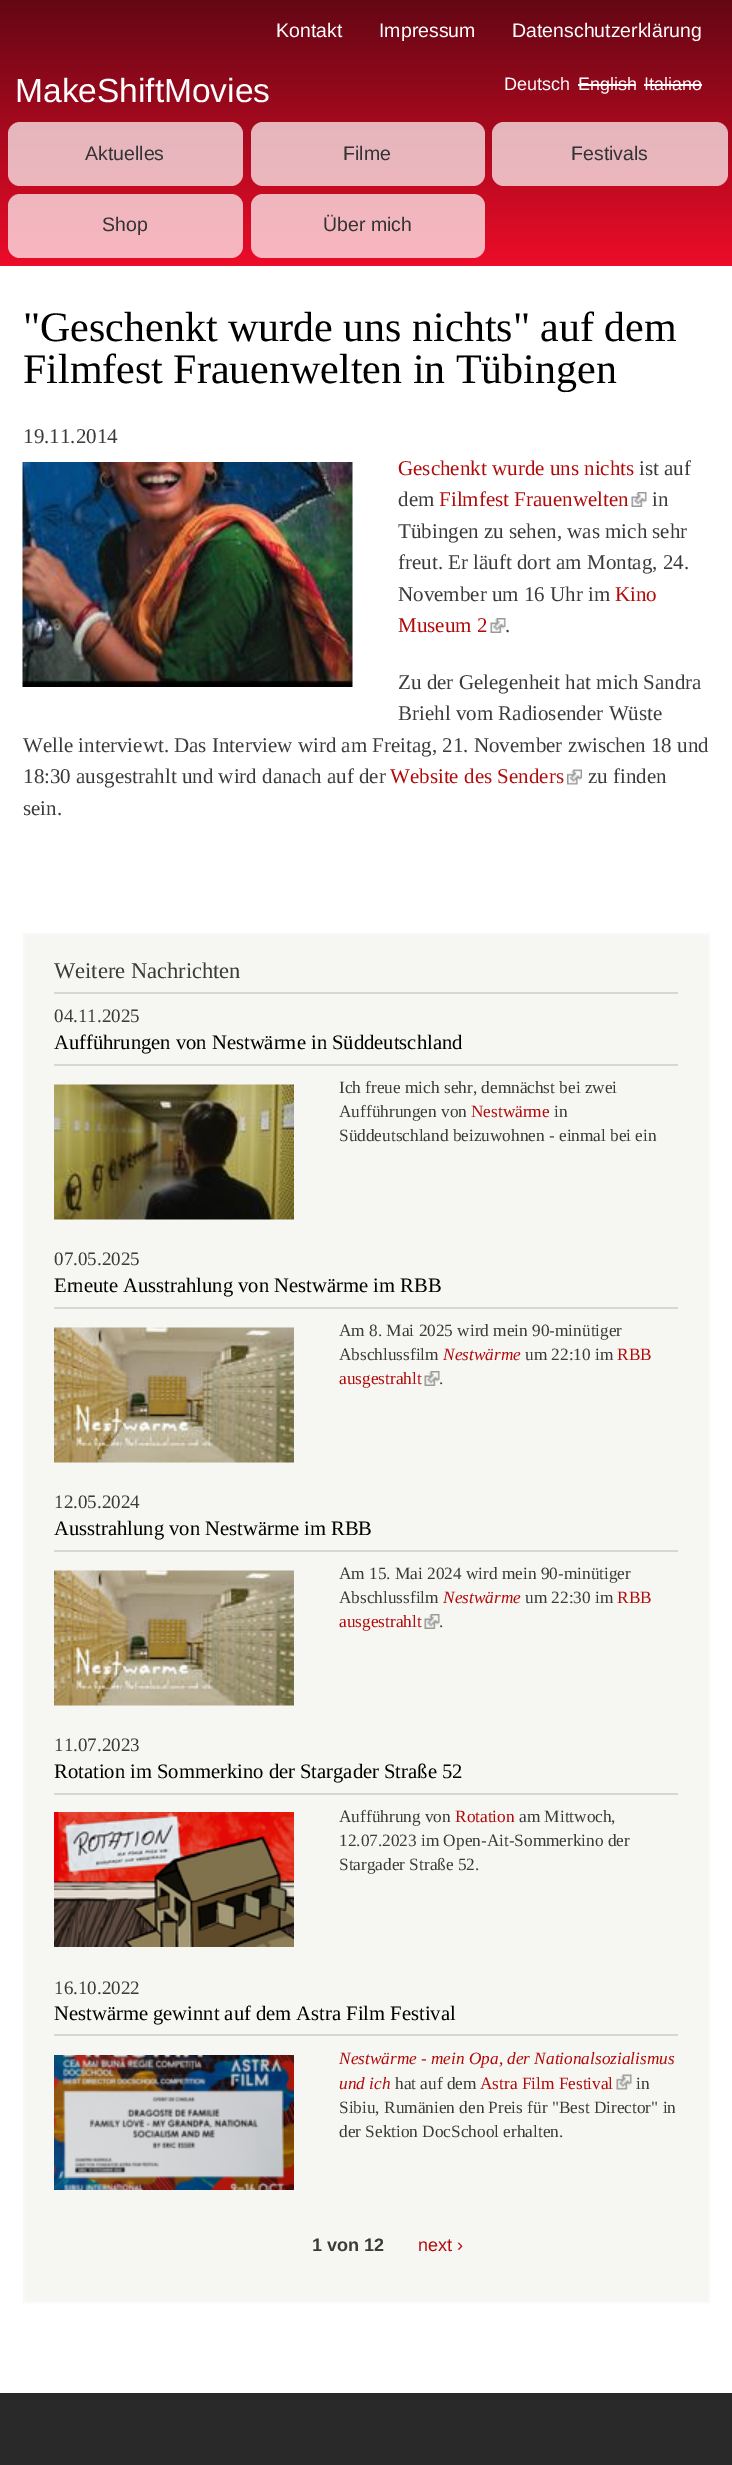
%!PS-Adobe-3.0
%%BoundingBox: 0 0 732 2465
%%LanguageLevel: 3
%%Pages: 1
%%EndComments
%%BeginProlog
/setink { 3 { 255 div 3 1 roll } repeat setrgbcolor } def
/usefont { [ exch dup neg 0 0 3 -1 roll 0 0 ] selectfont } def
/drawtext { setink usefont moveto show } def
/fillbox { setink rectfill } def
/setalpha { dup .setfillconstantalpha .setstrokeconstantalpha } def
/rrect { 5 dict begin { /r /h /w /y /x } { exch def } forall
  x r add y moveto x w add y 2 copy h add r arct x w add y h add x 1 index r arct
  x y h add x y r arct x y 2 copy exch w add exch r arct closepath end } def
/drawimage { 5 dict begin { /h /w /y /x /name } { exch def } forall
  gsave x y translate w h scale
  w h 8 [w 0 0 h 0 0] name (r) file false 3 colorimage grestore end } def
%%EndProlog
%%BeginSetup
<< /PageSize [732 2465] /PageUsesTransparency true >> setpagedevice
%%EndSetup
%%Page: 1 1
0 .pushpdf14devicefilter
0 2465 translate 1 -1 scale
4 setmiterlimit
0 0 732 2465 255 255 255 fillbox
gsave 0 0 moveto 732 0 lineto 732 266 lineto 0 266 lineto closepath clip newpath
<< /ShadingType 2 /ColorSpace /DeviceRGB /Coords [366 0 366 266] /Extend [true true] /Function << /FunctionType 2 /Domain [0 1] /C0 [0.392 0.027 0.078] /C1 [0.929 0.047 0.161] /N 1 >> >> shfill grestore
(Kontakt) 276 37 /LiberationSans-Regular 19.5 255 254 255 drawtext
(Impressum) 379 37 /LiberationSans-Regular 19.5 255 254 255 drawtext
(Datenschutzerklärung) 512 37 /LiberationSans-Regular 19.5 255 254 255 drawtext
(MakeShiftMovies) 15 102 /LiberationSans-Regular 33.5 255 254 255 drawtext
(Deutsch) 504 90 /LiberationSans-Regular 18 255 254 255 drawtext
(English) 578 90 /LiberationSans-Regular 18 255 254 255 drawtext
578 84 58 2 255 254 255 fillbox
(Italiano) 644 90 /LiberationSans-Regular 18 255 254 255 drawtext
644 84 58 2 255 254 255 fillbox
0.7 setalpha
255 255 255 setink
8 122 235 64 12 rrect fill
1 setalpha
(Aktuelles) 85 160 /LiberationSans-Regular 19.5 51 51 51 drawtext
0.7 setalpha
255 255 255 setink
251 122 234 64 12 rrect fill
1 setalpha
(Filme) 343 160 /LiberationSans-Regular 19.5 51 51 51 drawtext
0.7 setalpha
255 255 255 setink
492 122 236 64 12 rrect fill
1 setalpha
(Festivals) 571 160 /LiberationSans-Regular 19.5 51 51 51 drawtext
0.7 setalpha
255 255 255 setink
8 194 235 64 12 rrect fill
1 setalpha
(Shop) 102 231 /LiberationSans-Regular 19.5 51 51 51 drawtext
0.7 setalpha
255 255 255 setink
251 194 234 64 12 rrect fill
1 setalpha
(Über mich) 323 231 /LiberationSans-Regular 19.5 51 51 51 drawtext
("Geschenkt wurde uns nichts" auf dem) 23 341 /LiberationSerif-Regular 42 0 0 0 drawtext
(Filmfest Frauenwelten in Tübingen) 23 383 /LiberationSerif-Regular 42 0 0 0 drawtext
(19.11.2014) 23 443 /LiberationSerif-Regular 21 59 59 59 drawtext
(Geschenkt wurde uns nichts) 398 475 /LiberationSerif-Regular 21 177 10 10 drawtext
(ist auf) 639 475 /LiberationSerif-Regular 21 59 59 59 drawtext
(dem) 398 506 /LiberationSerif-Regular 21 59 59 59 drawtext
(Filmfest Frauenwelten) 439 506 /LiberationSerif-Regular 21 177 10 10 drawtext
(assets/img1.rgb) 631 492 16 15 drawimage
(in) 652 506 /LiberationSerif-Regular 21 59 59 59 drawtext
(Tübingen zu sehen, was mich sehr) 398 538 /LiberationSerif-Regular 21 59 59 59 drawtext
(freut. Er läuft dort am Montag, 24.) 398 569 /LiberationSerif-Regular 21 59 59 59 drawtext
(November um 16 Uhr im) 398 601 /LiberationSerif-Regular 21 59 59 59 drawtext
(Kino) 615 601 /LiberationSerif-Regular 21 177 10 10 drawtext
(Museum 2) 398 632 /LiberationSerif-Regular 21 177 10 10 drawtext
(assets/img2.rgb) 490 618 16 15 drawimage
(.) 505 632 /LiberationSerif-Regular 21 59 59 59 drawtext
(Zu der Gelegenheit hat mich Sandra) 398 689 /LiberationSerif-Regular 21 59 59 59 drawtext
(Briehl vom Radiosender Wüste) 398 720 /LiberationSerif-Regular 21 59 59 59 drawtext
(Welle interviewt. Das Interview wird am Freitag, 21. November zwischen 18 und) 23 752 /LiberationSerif-Regular 21 59 59 59 drawtext
(18:30 ausgestrahlt und wird danach auf der) 23 783 /LiberationSerif-Regular 21 59 59 59 drawtext
(Website des Senders) 390 783 /LiberationSerif-Regular 21 177 10 10 drawtext
(assets/img3.rgb) 567 769 15 16 drawimage
(zu finden) 588 783 /LiberationSerif-Regular 21 59 59 59 drawtext
(sein.) 23 815 /LiberationSerif-Regular 21 59 59 59 drawtext
(assets/img4.rgb) 22 462 331 225 drawimage
246 246 242 setink
24 934 moveto 709 934 lineto 709 2302 lineto 24 2302 lineto closepath gsave fill grestore
249 249 249 setink
2 setlinewidth
stroke
54 992 624 2 214 214 214 fillbox
(Weitere Nachrichten) 54 978 /LiberationSerif-Regular 22.5 59 59 59 drawtext
(04.11.2025) 54 1022 /LiberationSerif-Regular 19 59 59 59 drawtext
54 1064 624 2 214 214 214 fillbox
(Aufführungen von Nestwärme in Süddeutschland) 54 1049 /LiberationSerif-Regular 20.6 0 0 0 drawtext
(assets/img5.rgb) 54 1084 240 136 drawimage
(Ich freue mich sehr, demnächst bei zwei) 339 1093 /LiberationSerif-Regular 17.25 59 59 59 drawtext
(Aufführungen von) 339 1117 /LiberationSerif-Regular 17.25 59 59 59 drawtext
(Nestwärme) 471 1117 /LiberationSerif-Regular 17.25 177 10 10 drawtext
(in) 554 1117 /LiberationSerif-Regular 17.25 59 59 59 drawtext
(Süddeutschland beizuwohnen - einmal bei ein) 339 1141 /LiberationSerif-Regular 17.25 59 59 59 drawtext
(07.05.2025) 54 1265 /LiberationSerif-Regular 19 59 59 59 drawtext
54 1307 624 2 214 214 214 fillbox
(Erneute Ausstrahlung von Nestwärme im RBB) 54 1292 /LiberationSerif-Regular 20.6 0 0 0 drawtext
(assets/img6.rgb) 54 1327 240 136 drawimage
(Am 8. Mai 2025 wird mein 90-minütiger) 339 1336 /LiberationSerif-Regular 17.25 59 59 59 drawtext
(Abschlussfilm) 339 1360 /LiberationSerif-Regular 17.25 59 59 59 drawtext
(Nestwärme) 443 1360 /LiberationSerif-Italic 17.25 177 10 10 drawtext
(um 22:10 im) 525 1360 /LiberationSerif-Regular 17.25 59 59 59 drawtext
(RBB) 617 1360 /LiberationSerif-Regular 17.25 177 10 10 drawtext
(ausgestrahlt) 339 1384 /LiberationSerif-Regular 17.25 177 10 10 drawtext
(assets/img7.rgb) 424 1371 16 15 drawimage
(.) 439 1384 /LiberationSerif-Regular 17.25 59 59 59 drawtext
(12.05.2024) 54 1508 /LiberationSerif-Regular 19 59 59 59 drawtext
54 1550 624 2 214 214 214 fillbox
(Ausstrahlung von Nestwärme im RBB) 54 1535 /LiberationSerif-Regular 20.6 0 0 0 drawtext
(assets/img6.rgb) 54 1570 240 136 drawimage
(Am 15. Mai 2024 wird mein 90-minütiger) 339 1579 /LiberationSerif-Regular 17.25 59 59 59 drawtext
(Abschlussfilm) 339 1603 /LiberationSerif-Regular 17.25 59 59 59 drawtext
(Nestwärme) 443 1603 /LiberationSerif-Italic 17.25 177 10 10 drawtext
(um 22:30 im) 525 1603 /LiberationSerif-Regular 17.25 59 59 59 drawtext
(RBB) 617 1603 /LiberationSerif-Regular 17.25 177 10 10 drawtext
(ausgestrahlt) 339 1627 /LiberationSerif-Regular 17.25 177 10 10 drawtext
(assets/img7.rgb) 424 1614 16 15 drawimage
(.) 439 1627 /LiberationSerif-Regular 17.25 59 59 59 drawtext
(11.07.2023) 54 1751 /LiberationSerif-Regular 19 59 59 59 drawtext
54 1793 624 2 214 214 214 fillbox
(Rotation im Sommerkino der Stargader Straße 52) 54 1778 /LiberationSerif-Regular 20.6 0 0 0 drawtext
(assets/img8.rgb) 54 1812 240 135 drawimage
(Aufführung von) 339 1822 /LiberationSerif-Regular 17.25 59 59 59 drawtext
(Rotation) 455 1822 /LiberationSerif-Regular 17.25 177 10 10 drawtext
(am Mittwoch,) 519 1822 /LiberationSerif-Regular 17.25 59 59 59 drawtext
(12.07.2023 im Open-Ait-Sommerkino der) 339 1846 /LiberationSerif-Regular 17.25 59 59 59 drawtext
(Stargader Straße 52.) 339 1870 /LiberationSerif-Regular 17.25 59 59 59 drawtext
(16.10.2022) 54 1994 /LiberationSerif-Regular 19 59 59 59 drawtext
54 2034 624 2 214 214 214 fillbox
(Nestwärme gewinnt auf dem Astra Film Festival) 54 2020 /LiberationSerif-Regular 20.6 0 0 0 drawtext
(assets/img9.rgb) 54 2055 240 135 drawimage
(Nestwärme - mein Opa, der Nationalsozialismus) 339 2064 /LiberationSerif-Italic 17.25 177 10 10 drawtext
(und ich) 339 2089 /LiberationSerif-Italic 17.25 177 10 10 drawtext
(hat auf dem) 395 2089 /LiberationSerif-Regular 17.25 59 59 59 drawtext
(Astra Film Festival) 480 2089 /LiberationSerif-Regular 17.25 177 10 10 drawtext
(assets/img10.rgb) 616 2074 16 16 drawimage
(in) 636 2089 /LiberationSerif-Regular 17.25 59 59 59 drawtext
(Sibiu, Rumänien den Preis für "Best Director" in) 339 2113 /LiberationSerif-Regular 17.25 59 59 59 drawtext
(der Sektion DocSchool erhalten.) 339 2137 /LiberationSerif-Regular 17.25 59 59 59 drawtext
(1 von 12) 312 2251 /LiberationSans-Bold 18 59 59 59 drawtext
(next ›) 418 2251 /LiberationSans-Regular 18 177 10 10 drawtext
0 2393 732 72 41 41 41 fillbox
.poppdf14devicefilter showpage
%%EOF
